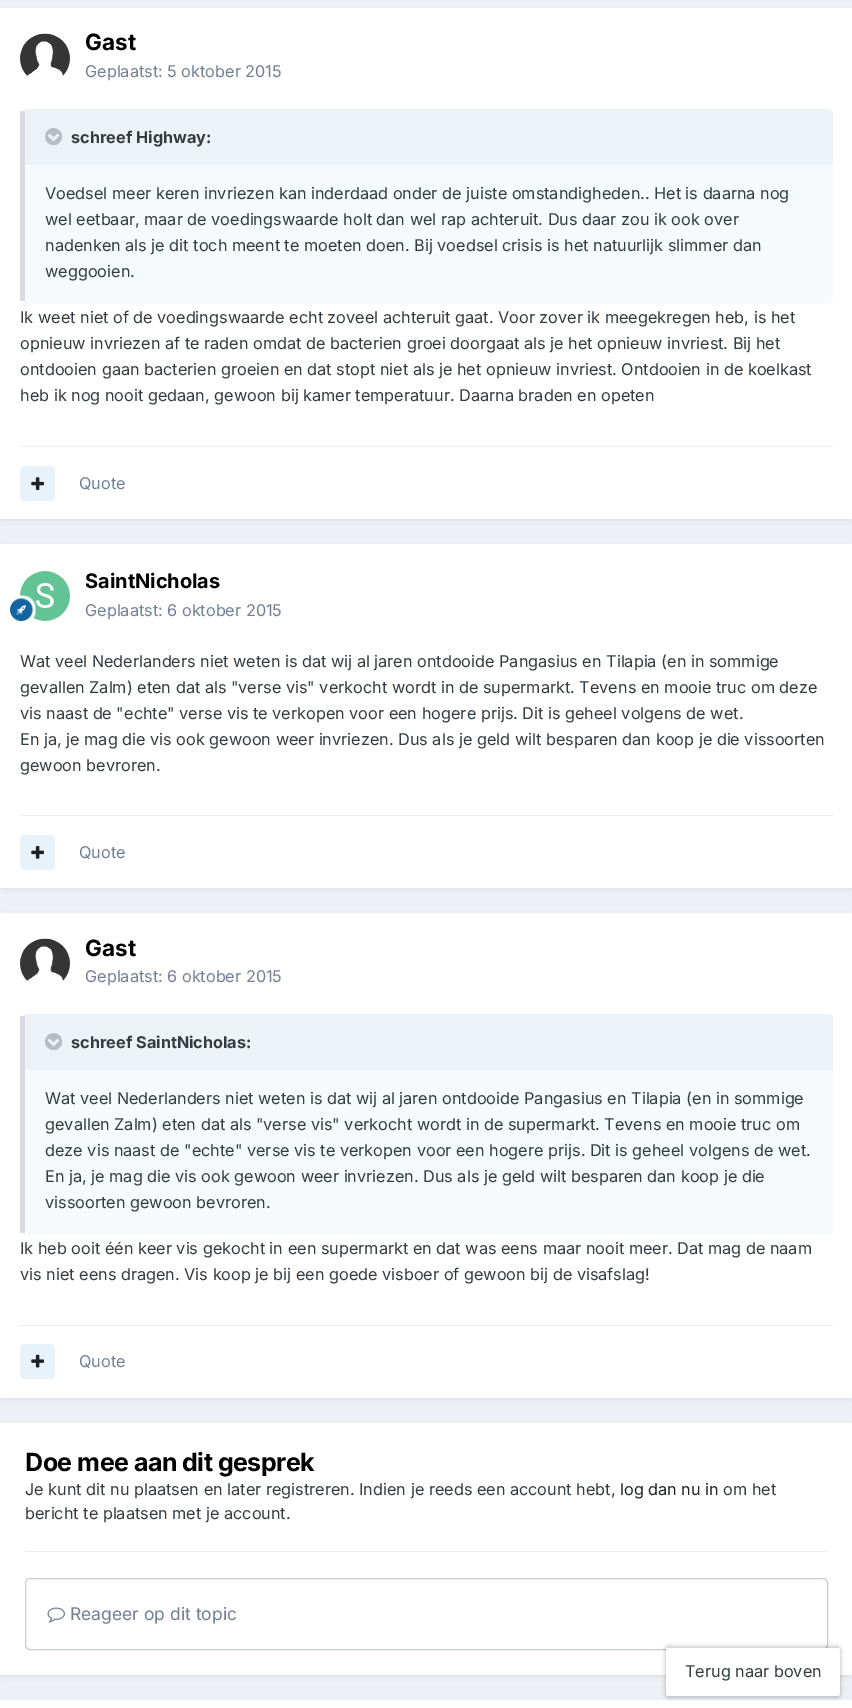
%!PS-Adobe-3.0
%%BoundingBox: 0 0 852 1708
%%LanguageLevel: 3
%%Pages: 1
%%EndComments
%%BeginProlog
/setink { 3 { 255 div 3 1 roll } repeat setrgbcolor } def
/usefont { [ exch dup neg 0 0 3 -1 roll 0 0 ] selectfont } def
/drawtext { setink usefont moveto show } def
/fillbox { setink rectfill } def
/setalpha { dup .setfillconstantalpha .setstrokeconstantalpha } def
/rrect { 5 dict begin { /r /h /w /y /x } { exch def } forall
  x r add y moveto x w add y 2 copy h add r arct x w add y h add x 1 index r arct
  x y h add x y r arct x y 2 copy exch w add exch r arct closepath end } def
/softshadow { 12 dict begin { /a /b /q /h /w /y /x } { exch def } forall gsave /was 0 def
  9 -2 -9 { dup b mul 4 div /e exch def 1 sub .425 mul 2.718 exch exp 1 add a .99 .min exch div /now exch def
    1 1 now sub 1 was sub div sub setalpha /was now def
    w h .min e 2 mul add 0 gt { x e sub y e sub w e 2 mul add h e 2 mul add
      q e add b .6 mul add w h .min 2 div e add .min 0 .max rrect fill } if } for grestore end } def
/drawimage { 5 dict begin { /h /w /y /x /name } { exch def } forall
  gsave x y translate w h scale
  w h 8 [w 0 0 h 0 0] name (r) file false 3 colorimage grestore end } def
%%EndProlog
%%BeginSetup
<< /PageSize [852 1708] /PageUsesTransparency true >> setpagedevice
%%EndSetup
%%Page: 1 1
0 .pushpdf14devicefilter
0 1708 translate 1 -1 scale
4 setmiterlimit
0 0 852 1708 237 240 244 fillbox
45 55 72 setink
1 11 850 509 0 2.5 0.1 softshadow
0 8 852 511 255 255 255 fillbox
(assets/img1.rgb) 20 33 50 43 drawimage
(Gast) 85 50 /Inter-Bold 22.5 0 0 0 drawtext
(Geplaatst: 5 oktober 2015) 85 77 /Inter-Regular 16.25 113 128 150 drawtext
247 250 252 setink
20 109 813 195 5 rrect fill
0.15 setalpha
20 111 5 190 45 55 72 fillbox
1 setalpha
237 242 247 setink
25 109 moveto 828 109 lineto 831 109 833 111 833 114 curveto 833 165 lineto 25 165 lineto closepath fill
(assets/img2.rgb) 45 128 18 18 drawimage
(schreef Highway:) 71 143 /Inter-Bold 16.25 53 60 65 drawtext
(Voedsel meer keren invriezen kan inderdaad onder de juiste omstandigheden.. Het is daarna nog) 45 199 /Inter-Regular 16.25 53 60 65 drawtext
(wel eetbaar, maar de voedingswaarde holt dan wel rap achteruit. Dus daar zou ik ook over) 45 225 /Inter-Regular 16.25 53 60 65 drawtext
(nadenken als je dit toch meent te moeten doen. Bij voedsel crisis is het natuurlijk slimmer dan) 45 251 /Inter-Regular 16.25 53 60 65 drawtext
(weggooien.) 45 277 /Inter-Regular 16.25 53 60 65 drawtext
(Ik weet niet of de voedingswaarde echt zoveel achteruit gaat. Voor zover ik meegekregen heb, is het) 20 323 /Inter-Regular 16.25 53 60 65 drawtext
(opnieuw invriezen af te raden omdat de bacterien groei doorgaat als je het opnieuw invriest. Bij het) 20 349 /Inter-Regular 16.25 53 60 65 drawtext
(ontdooien gaan bacterien groeien en dat stopt niet als je het opnieuw invriest. Ontdooien in de koelkast) 20 375 /Inter-Regular 16.25 53 60 65 drawtext
(heb ik nog nooit gedaan, gewoon bij kamer temperatuur. Daarna braden en opeten) 20 401 /Inter-Regular 16.25 53 60 65 drawtext
20 446 813 1 235 236 236 fillbox
232 242 250 setink
20 466 35 35 5 rrect fill
(assets/img3.rgb) 31 477 13 13 drawimage
(Quote) 79 489 /Inter-Regular 16.25 113 128 150 drawtext
45 55 72 setink
1 548 850 341 0 2.5 0.1 softshadow
0 544 852 344 255 255 255 fillbox
(assets/img4.rgb) 20 571 50 50 drawimage
(assets/img5.rgb) 10 595 26 26 drawimage
(SaintNicholas) 85 588 /Inter-Bold 20 0 0 0 drawtext
(Geplaatst: 6 oktober 2015) 85 616 /Inter-Regular 16.25 113 128 150 drawtext
(Wat veel Nederlanders niet weten is dat wij al jaren ontdooide Pangasius en Tilapia \(en in sommige) 20 667 /Inter-Regular 16.25 53 60 65 drawtext
(gevallen Zalm\) eten dat als "verse vis" verkocht wordt in de supermarkt. Tevens en mooie truc om deze) 20 693 /Inter-Regular 16.25 53 60 65 drawtext
(vis naast de "echte" verse vis te verkopen voor een hogere prijs. Dit is geheel volgens de wet.) 20 719 /Inter-Regular 16.25 53 60 65 drawtext
(En ja, je mag die vis ook gewoon weer invriezen. Dus als je geld wilt besparen dan koop je die vissoorten) 20 745 /Inter-Regular 16.25 53 60 65 drawtext
(gewoon bevroren.) 20 771 /Inter-Regular 16.25 53 60 65 drawtext
20 815 813 1 235 236 236 fillbox
232 242 250 setink
20 835 35 35 5 rrect fill
(assets/img6.rgb) 31 846 13 13 drawimage
(Quote) 79 858 /Inter-Regular 16.25 113 128 150 drawtext
45 55 72 setink
1 916 850 483 0 2.5 0.1 softshadow
0 913 852 485 255 255 255 fillbox
(assets/img1.rgb) 20 938 50 43 drawimage
(Gast) 85 956 /Inter-Bold 22.5 0 0 0 drawtext
(Geplaatst: 6 oktober 2015) 85 982 /Inter-Regular 16.25 113 128 150 drawtext
247 250 252 setink
20 1014 813 221 5 rrect fill
0.15 setalpha
20 1016 5 217 45 55 72 fillbox
1 setalpha
237 242 247 setink
25 1014 moveto 828 1014 lineto 831 1014 833 1016 833 1019 curveto 833 1070 lineto 25 1070 lineto closepath fill
(assets/img2.rgb) 45 1033 18 18 drawimage
(schreef SaintNicholas:) 71 1048 /Inter-Bold 16.25 53 60 65 drawtext
(Wat veel Nederlanders niet weten is dat wij al jaren ontdooide Pangasius en Tilapia \(en in sommige) 45 1104 /Inter-Regular 16.25 53 60 65 drawtext
(gevallen Zalm\) eten dat als "verse vis" verkocht wordt in de supermarkt. Tevens en mooie truc om) 45 1130 /Inter-Regular 16.25 53 60 65 drawtext
(deze vis naast de "echte" verse vis te verkopen voor een hogere prijs. Dit is geheel volgens de wet.) 45 1156 /Inter-Regular 16.25 53 60 65 drawtext
(En ja, je mag die vis ook gewoon weer invriezen. Dus als je geld wilt besparen dan koop je die) 45 1182 /Inter-Regular 16.25 53 60 65 drawtext
(vissoorten gewoon bevroren.) 45 1208 /Inter-Regular 16.25 53 60 65 drawtext
(Ik heb ooit één keer vis gekocht in een supermarkt en dat was eens maar nooit meer. Dat mag de naam) 20 1254 /Inter-Regular 16.25 53 60 65 drawtext
(vis niet eens dragen. Vis koop je bij een goede visboer of gewoon bij de visafslag!) 20 1280 /Inter-Regular 16.25 53 60 65 drawtext
20 1325 813 1 235 236 236 fillbox
232 242 250 setink
20 1344 35 35 5 rrect fill
(assets/img7.rgb) 31 1354 13 14 drawimage
(Quote) 79 1367 /Inter-Regular 16.25 113 128 150 drawtext
45 55 72 setink
1 1426 850 250 0 2.5 0.1 softshadow
0 1423 852 252 255 255 255 fillbox
25 1551 803 1 234 236 239 fillbox
/Inter-Bold 25 usefont
0 0 0 setink
25 1471 moveto -0.5 0 (Doe mee aan dit gesprek) ashow
(Je kunt dit nu plaatsen en later registreren. Indien je reeds een account hebt,) 25 1495 /Inter-Regular 16.25 53 60 65 drawtext
(log dan nu in) 620 1495 /Inter-Regular 16.25 31 33 38 drawtext
(om het) 723 1495 /Inter-Regular 16.25 53 60 65 drawtext
(bericht te plaatsen met je account.) 25 1519 /Inter-Regular 16.25 53 60 65 drawtext
198 204 213 setink
25.5 1578.5 802 71 4.5 rrect stroke
(assets/img8.rgb) 47 1607 18 16 drawimage
(Reageer op dit topic) 70 1620 /Inter-Regular 17.5 113 128 150 drawtext
0 1700 852 8 255 255 255 fillbox
0 0 0 setink
665 1646 176 52 4 2 0.2 softshadow
255 255 255 setink
666 1648 174 48 2.5 rrect fill
(Terug naar boven) 685 1677 /Inter-Regular 16.25 53 60 65 drawtext
.poppdf14devicefilter showpage
%%EOF
